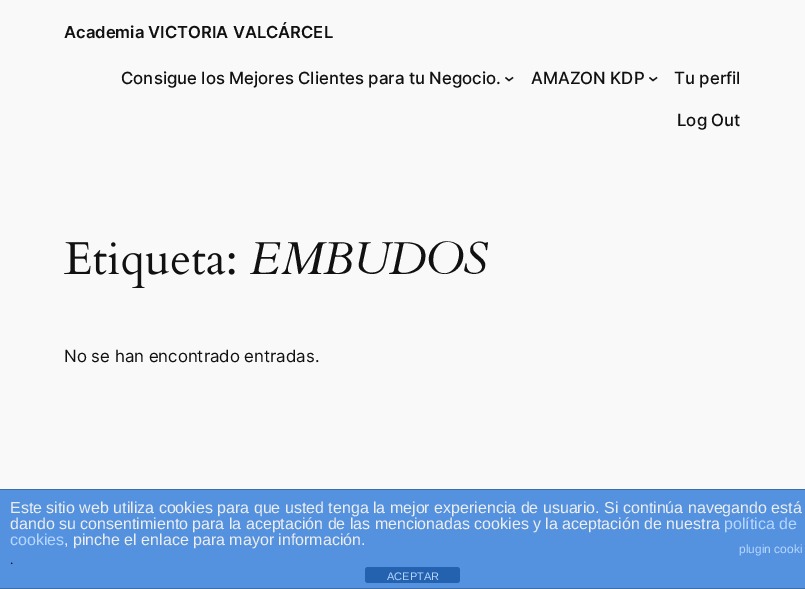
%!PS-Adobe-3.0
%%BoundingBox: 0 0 805 589
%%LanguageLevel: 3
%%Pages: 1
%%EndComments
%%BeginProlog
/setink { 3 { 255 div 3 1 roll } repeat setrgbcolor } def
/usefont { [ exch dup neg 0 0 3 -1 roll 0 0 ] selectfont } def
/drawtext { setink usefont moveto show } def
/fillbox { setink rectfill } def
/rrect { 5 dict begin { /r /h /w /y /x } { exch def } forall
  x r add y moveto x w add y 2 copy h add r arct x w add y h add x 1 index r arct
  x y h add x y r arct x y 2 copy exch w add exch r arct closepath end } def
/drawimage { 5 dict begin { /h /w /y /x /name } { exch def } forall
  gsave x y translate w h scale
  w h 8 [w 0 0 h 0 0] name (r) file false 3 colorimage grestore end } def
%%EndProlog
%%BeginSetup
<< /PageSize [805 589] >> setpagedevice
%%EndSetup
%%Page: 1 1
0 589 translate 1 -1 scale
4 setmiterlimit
0 0 805 589 249 249 249 fillbox
(Academia VICTORIA VALCÁRCEL) 64 38 /Inter-SemiBold 16.6 17 17 17 drawtext
(Consigue los Mejores Clientes para tu Negocio.) 121 84 /Inter-Medium 16.8 17 17 17 drawtext
1.3 setlinewidth
505.5 77.5 moveto 509 80.5 lineto 513 77.5 lineto stroke
(AMAZON KDP) 531 84 /Inter-Medium 16.8 17 17 17 drawtext
649.5 77.5 moveto 653 80.5 lineto 657 77.5 lineto stroke
(Tu perfil) 674 84 /Inter-Medium 16.8 17 17 17 drawtext
(Log Out) 677 126 /Inter-Medium 16.8 17 17 17 drawtext
(assets/img1.rgb) 64 242 171 46 drawimage
(EMBUDOS) 250 274 /Cardo-Italic 46.25 17 17 17 drawtext
(No se han encontrado entradas.) 64 362 /Inter-Regular 16.8 17 17 17 drawtext
0 490 805 98 84 146 224 fillbox
0 489 805 1 63 109 167 fillbox
0 588 805 1 63 109 167 fillbox
(Este sitio web utiliza cookies para que usted tenga la mejor experiencia de usuario. Si continúa navegando está) 10 513 /LiberationSans-Regular 16 238 238 238 drawtext
(dando su consentimiento para la aceptación de las mencionadas cookies y la aceptación de nuestra) 10 529 /LiberationSans-Regular 16 238 238 238 drawtext
(política de) 724 529 /LiberationSans-Regular 16 183 215 255 drawtext
(cookies) 10 545 /LiberationSans-Regular 16 183 215 255 drawtext
(, pinche el enlace para mayor información.) 64 545 /LiberationSans-Regular 16 238 238 238 drawtext
(plugin cooki) 739 553 /LiberationSans-Regular 12 183 215 255 drawtext
(.) 10 564 /Inter-Regular 12 17 17 17 drawtext
36 98 176 setink
365 567 95 16 3 rrect fill
(ACEPTAR) 387 580 /LiberationSans-Regular 11 183 215 255 drawtext
showpage
%%EOF
